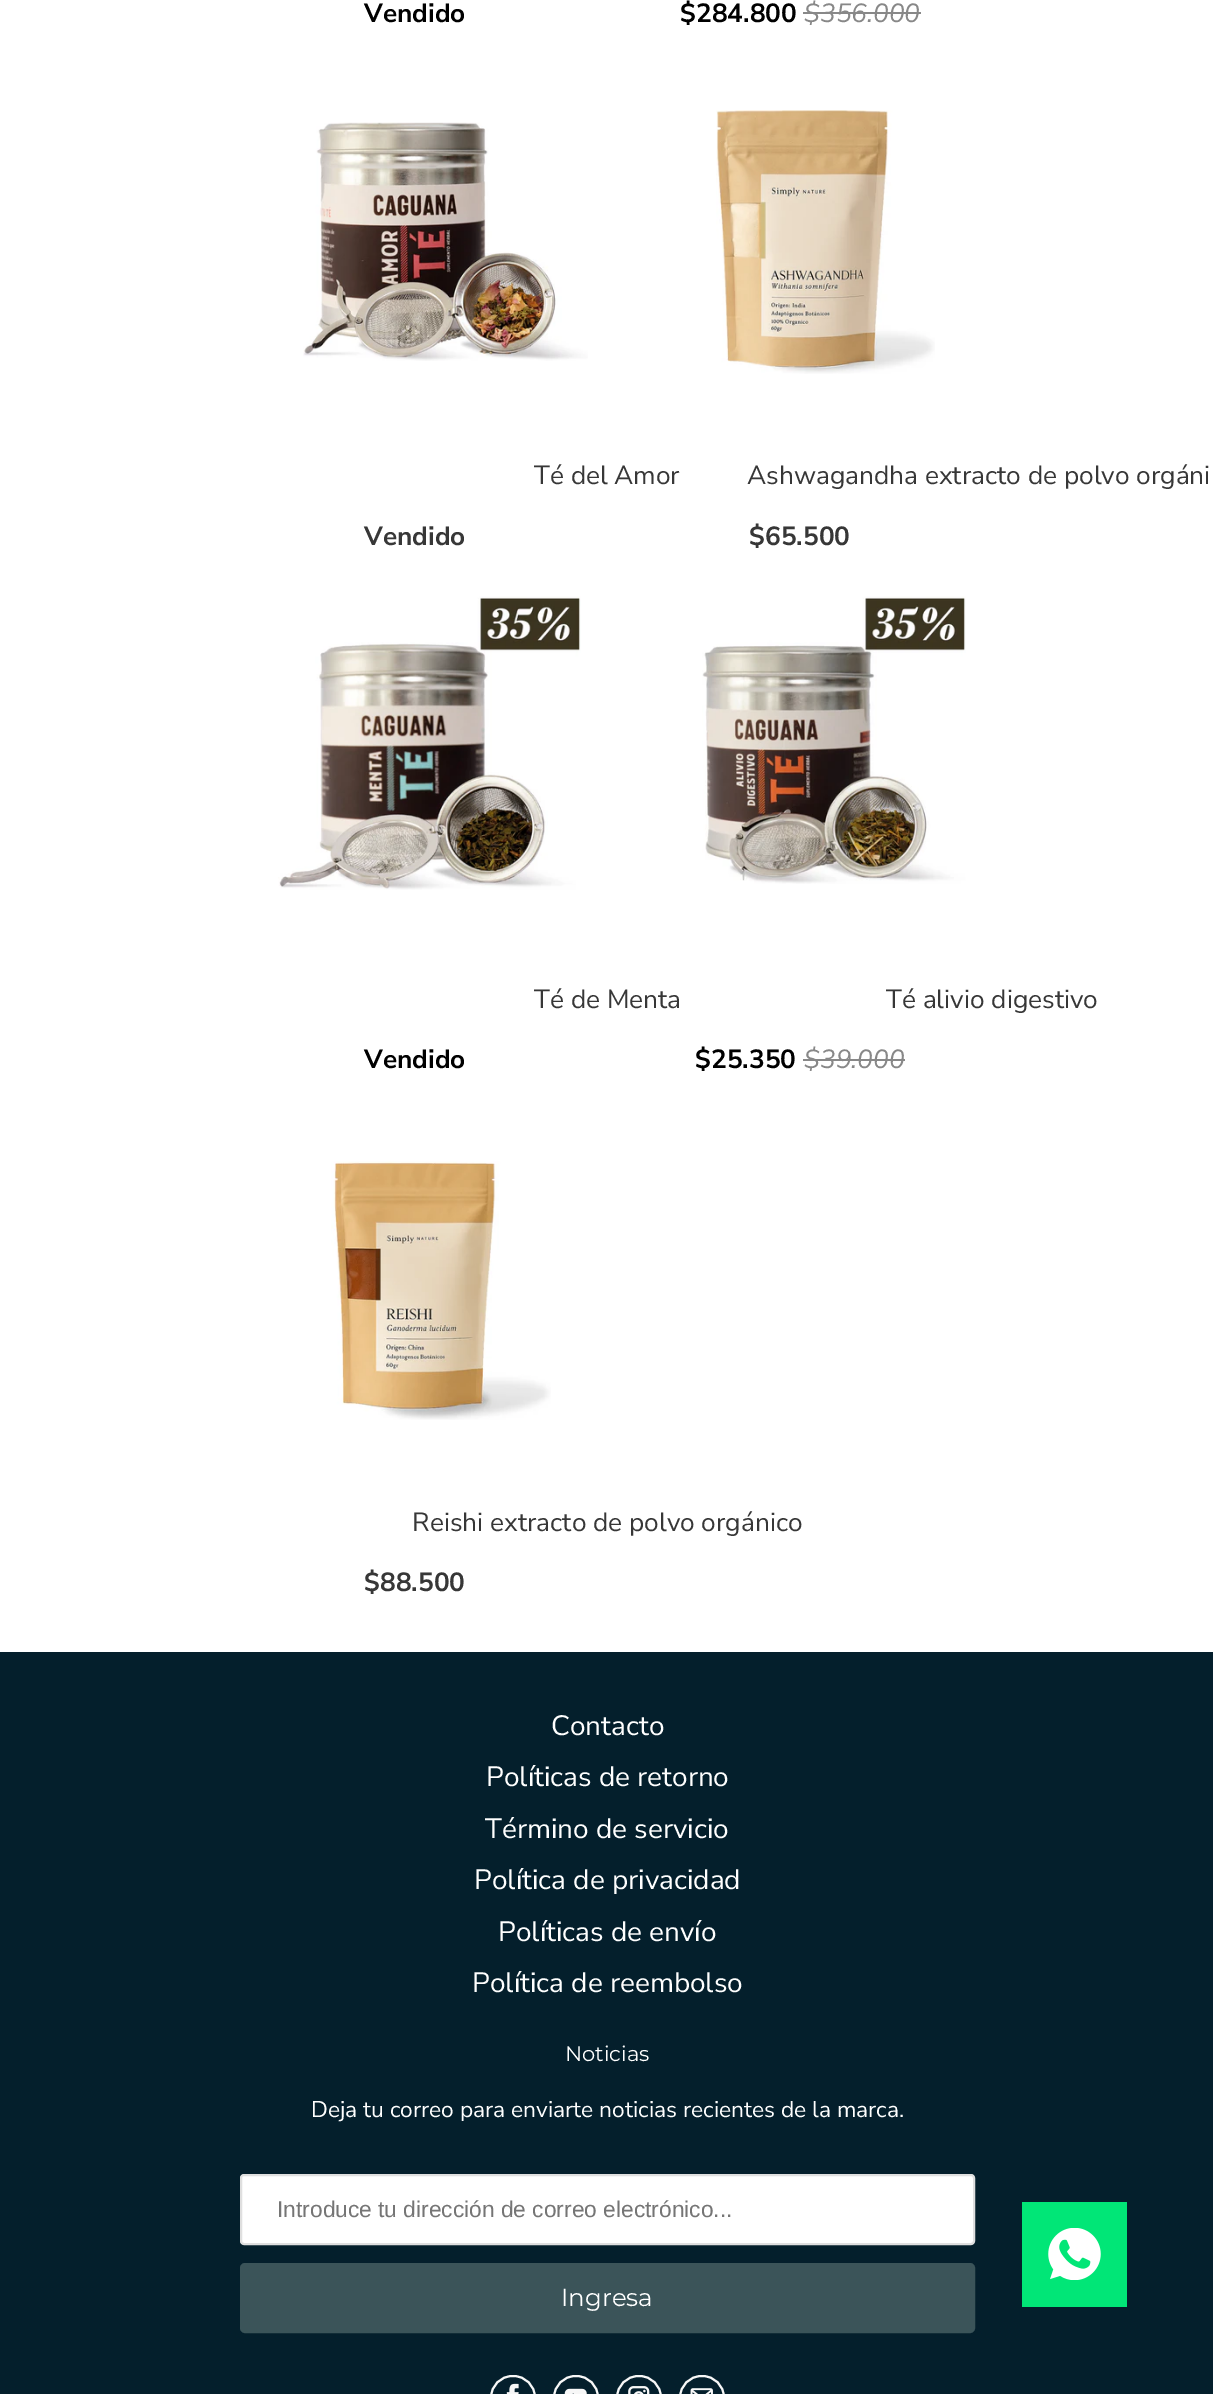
%!PS-Adobe-3.0
%%BoundingBox: 0 0 1213 2394
%%LanguageLevel: 3
%%Pages: 1
%%EndComments
%%BeginProlog
/setink { 3 { 255 div 3 1 roll } repeat setrgbcolor } def
/usefont { [ exch dup neg 0 0 3 -1 roll 0 0 ] selectfont } def
/drawtext { setink usefont moveto show } def
/fillbox { setink rectfill } def
/rrect { 5 dict begin { /r /h /w /y /x } { exch def } forall
  x r add y moveto x w add y 2 copy h add r arct x w add y h add x 1 index r arct
  x y h add x y r arct x y 2 copy exch w add exch r arct closepath end } def
/drawimage { 5 dict begin { /h /w /y /x /name } { exch def } forall
  gsave x y translate w h scale
  w h 8 [w 0 0 h 0 0] name (r) file false 3 colorimage grestore end } def
%%EndProlog
%%BeginSetup
<< /PageSize [1213 2394] >> setpagedevice
%%EndSetup
%%Page: 1 1
0 2394 translate 1 -1 scale
4 setmiterlimit
0 0 1213 2394 255 255 255 fillbox
(Vendido) 364 22 /NunitoSans-Bold 26.25 0 0 0 drawtext
($284.800) 680 22 /NunitoSans-Bold 26.25 0 0 0 drawtext
($356.000) 804 22 /NunitoSans-Italic 26.25 136 136 136 drawtext
803 12 118 2 136 136 136 fillbox
(assets/img1.rgb) 303 122 285 239 drawimage
(Té del Amor) 534 484 /NunitoSans-Regular 26.25 55 55 55 drawtext
(Vendido) 364 545 /NunitoSans-Bold 26.25 55 55 55 drawtext
(assets/img2.rgb) 716 110 219 264 drawimage
(Ashwagandha extracto de polvo orgáni) 747 484 /NunitoSans-Regular 26.25 55 55 55 drawtext
($65.500) 749 545 /NunitoSans-Bold 26.25 55 55 55 drawtext
(assets/img3.rgb) 278 596 303 294 drawimage
(Té de Menta) 534 1008 /NunitoSans-Regular 26.25 55 55 55 drawtext
(Vendido) 364 1068 /NunitoSans-Bold 26.25 0 0 0 drawtext
(assets/img4.rgb) 702 596 264 288 drawimage
(Té alivio digestivo) 886 1008 /NunitoSans-Regular 26.25 55 55 55 drawtext
($25.350) 695 1068 /NunitoSans-Bold 26.25 0 0 0 drawtext
($39.000) 804 1068 /NunitoSans-Italic 26.25 136 136 136 drawtext
803 1059 102 2 136 136 136 fillbox
(assets/img5.rgb) 331 1161 220 259 drawimage
(Reishi extracto de polvo orgánico) 412 1531 /NunitoSans-Regular 26.25 55 55 55 drawtext
($88.500) 364 1591 /NunitoSans-Bold 26.25 55 55 55 drawtext
0 1652 1213 742 4 31 44 fillbox
(Contacto) 551 1735 /NunitoSans-Regular 28 255 255 255 drawtext
(Políticas de retorno) 486 1786 /NunitoSans-Regular 28 255 255 255 drawtext
(Término de servicio) 485 1838 /NunitoSans-Regular 28 255 255 255 drawtext
(Política de privacidad) 474 1889 /NunitoSans-Regular 28 255 255 255 drawtext
(Políticas de envío) 498 1941 /NunitoSans-Regular 28 255 255 255 drawtext
(Política de reembolso) 472 1992 /NunitoSans-Regular 28 255 255 255 drawtext
(Noticias) 565 2061 /Montserrat-Regular 21 255 255 255 drawtext
(Deja tu correo para enviarte noticias recientes de la marca.) 311 2117 /NunitoSans-Regular 22.75 255 255 255 drawtext
241 2175 733 69 3 rrect gsave fill grestore
223 223 223 setink
2 setlinewidth
stroke
(Introduce tu dirección de correo electrónico...) 277 2217 /LiberationSans-Regular 22.75 117 117 117 drawtext
59 84 89 setink
241 2264 733 68 4 rrect gsave fill grestore
stroke
(Ingresa) 561 2306 /Montserrat-Regular 24.5 255 255 255 drawtext
247 247 247 setink
491 2376 44 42 21.5 rrect stroke
(assets/img6.rgb) 506 2383 13 11 drawimage
554 2376 44 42 21.5 rrect stroke
(assets/img7.rgb) 564 2388 23 6 drawimage
617 2376 44 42 21.5 rrect stroke
(assets/img8.rgb) 628 2386 22 8 drawimage
680 2376 44 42 21.5 rrect stroke
(assets/img9.rgb) 690 2388 23 6 drawimage
1022 2202 105 105 1 230 119 fillbox
(assets/img10.rgb) 1048 2228 53 52 drawimage
showpage
%%EOF
